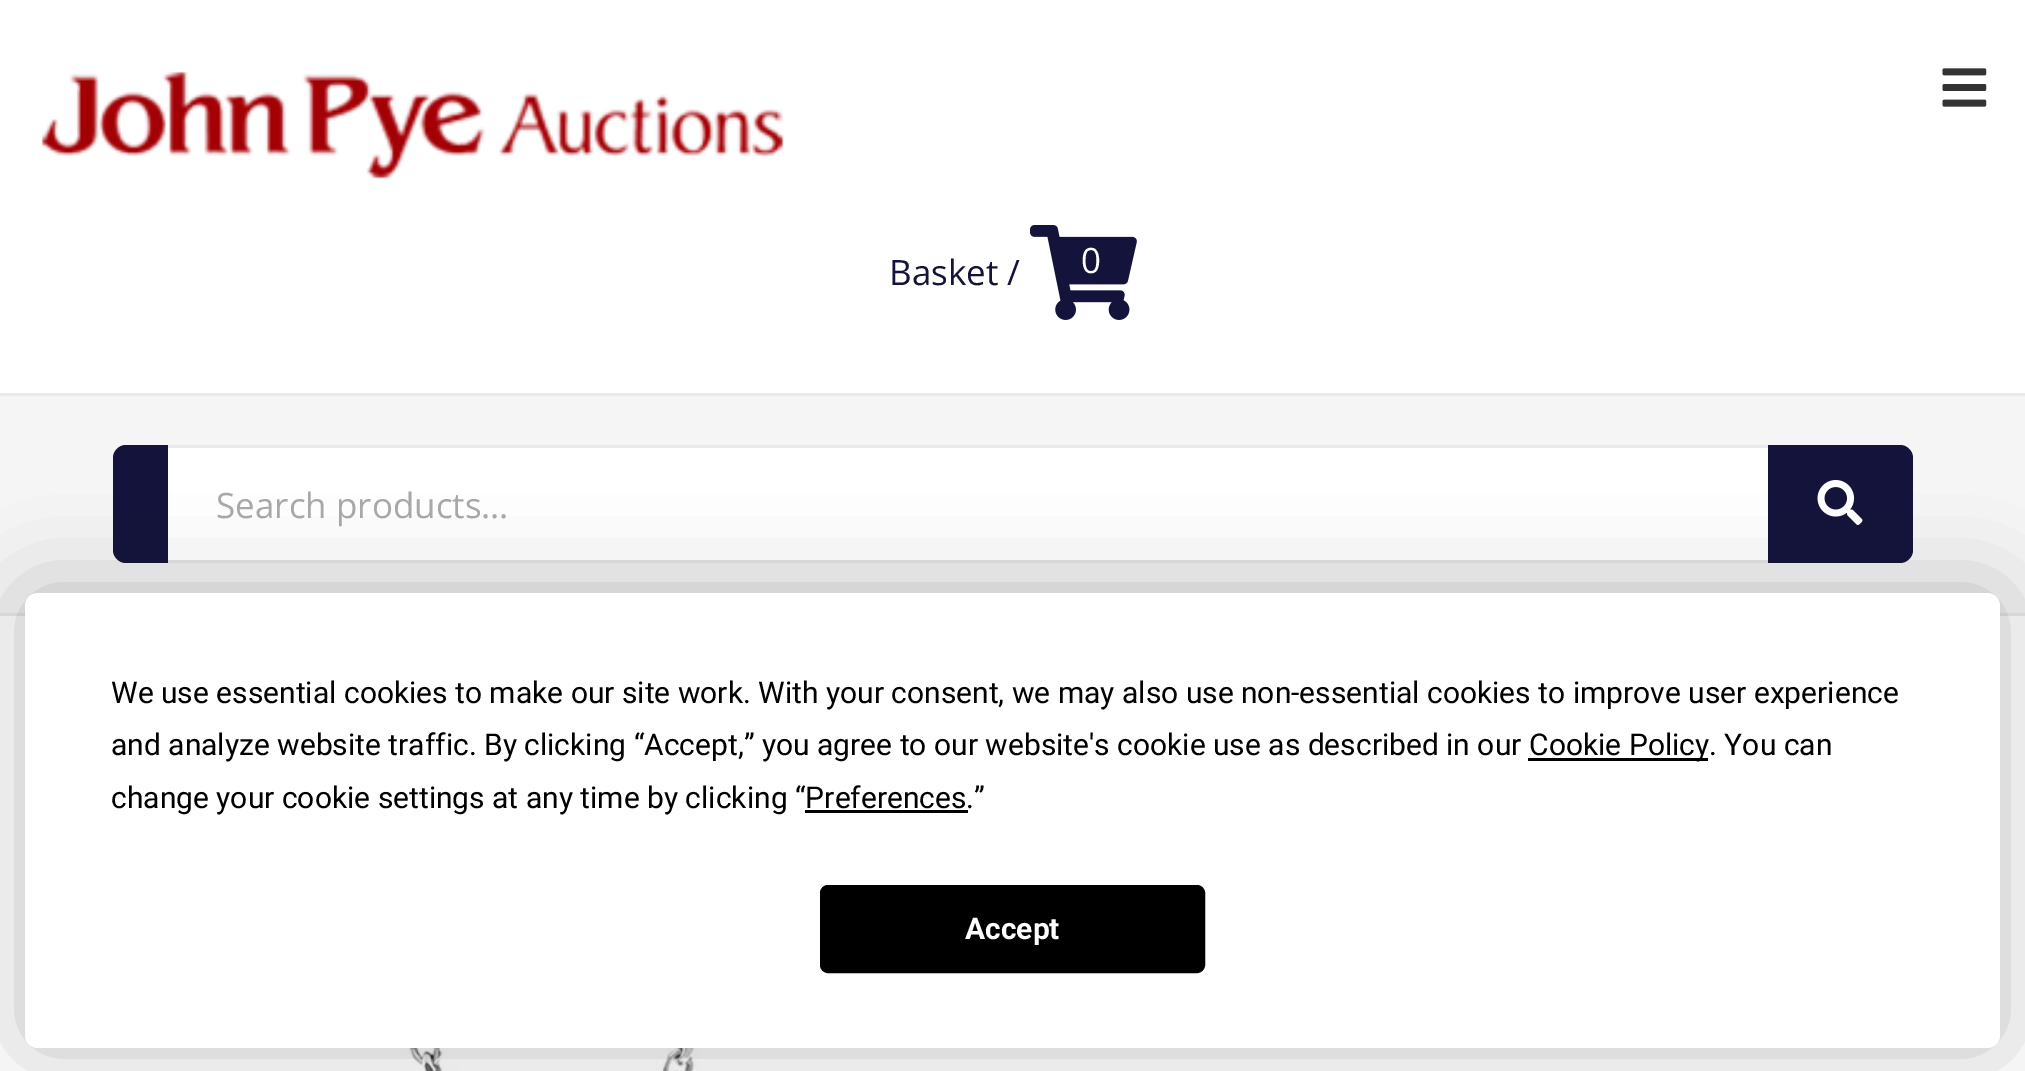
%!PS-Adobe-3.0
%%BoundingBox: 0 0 2025 1071
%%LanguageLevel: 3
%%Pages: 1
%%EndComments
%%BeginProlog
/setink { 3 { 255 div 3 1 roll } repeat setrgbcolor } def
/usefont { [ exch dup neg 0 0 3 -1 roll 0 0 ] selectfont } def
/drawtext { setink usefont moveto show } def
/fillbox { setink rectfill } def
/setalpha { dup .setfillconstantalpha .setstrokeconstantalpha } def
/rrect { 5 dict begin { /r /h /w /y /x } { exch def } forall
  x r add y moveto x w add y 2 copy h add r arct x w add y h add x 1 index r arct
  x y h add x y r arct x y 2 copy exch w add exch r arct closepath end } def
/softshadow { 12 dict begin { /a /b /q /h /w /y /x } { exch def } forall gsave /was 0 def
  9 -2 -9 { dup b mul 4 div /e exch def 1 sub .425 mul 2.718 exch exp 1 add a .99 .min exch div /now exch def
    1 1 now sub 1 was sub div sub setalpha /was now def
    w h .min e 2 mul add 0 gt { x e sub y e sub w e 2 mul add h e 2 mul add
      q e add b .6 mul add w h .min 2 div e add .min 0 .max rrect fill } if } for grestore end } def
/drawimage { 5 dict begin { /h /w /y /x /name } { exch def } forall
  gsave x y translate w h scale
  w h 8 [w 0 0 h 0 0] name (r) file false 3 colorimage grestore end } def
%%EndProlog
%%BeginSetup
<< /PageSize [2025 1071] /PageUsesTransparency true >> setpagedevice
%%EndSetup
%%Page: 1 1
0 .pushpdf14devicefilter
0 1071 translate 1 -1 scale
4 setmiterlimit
0 0 2025 1071 255 255 255 fillbox
(assets/img1.rgb) 41 71 743 108 drawimage
(assets/img2.rgb) 1942 68 45 39 drawimage
(Basket /) 889 285 /OpenSans-Regular 35 20 19 59 drawtext
(assets/img3.rgb) 1030 225 107 95 drawimage
(0) 1081 273 /OpenSans-Regular 35 255 255 255 drawtext
0 396 2025 217 245 245 245 fillbox
0 393 2025 3 233 233 233 fillbox
0 613 2025 3 233 233 233 fillbox
20 19 59 setink
126 445 moveto 168 445 lineto 168 563 lineto 126 563 lineto 119 563 113 557 113 550 curveto 113 458 lineto 113 451 119 445 126 445 curveto closepath fill
168 448 1600 112 255 255 255 fillbox
168 445 1600 3 233 233 233 fillbox
168 560 1600 3 233 233 233 fillbox
(Search products…) 216 518 /OpenSans-Regular 35 169 169 169 drawtext
20 19 59 setink
1768 445 moveto 1900 445 lineto 1907 445 1913 451 1913 458 curveto 1913 550 lineto 1913 557 1907 563 1900 563 curveto 1768 563 lineto closepath fill
(assets/img4.rgb) 1817 480 46 45 drawimage
(assets/img5.rgb) 322 1048 459 23 drawimage
0 0 0 setink
25 593 1975 455 13 44 0.25 softshadow
255 255 255 setink
25 593 1975 455 13 rrect fill
(We use essential cookies to make our site work. With your consent, we may also use non-essential cookies to improve user experience) 111 703 /Roboto-Regular 30 0 0 0 drawtext
(and analyze website traffic. By clicking “Accept,” you agree to our website's cookie use as described in our) 111 755 /Roboto-Regular 30 0 0 0 drawtext
1528 758 180 3 0 0 0 fillbox
(Cookie Policy. You can) 1529 755 /Roboto-Regular 30 0 0 0 drawtext
(change your cookie settings at any time by clicking “Preferences.”) 111 808 /Roboto-Regular 30 0 0 0 drawtext
805 810 163 3 0 0 0 fillbox
821.5 886.5 382 85 6.5 rrect gsave fill grestore
3 setlinewidth
stroke
(Accept) 965 939 /Roboto-Bold 30 255 255 255 drawtext
.poppdf14devicefilter showpage
%%EOF
